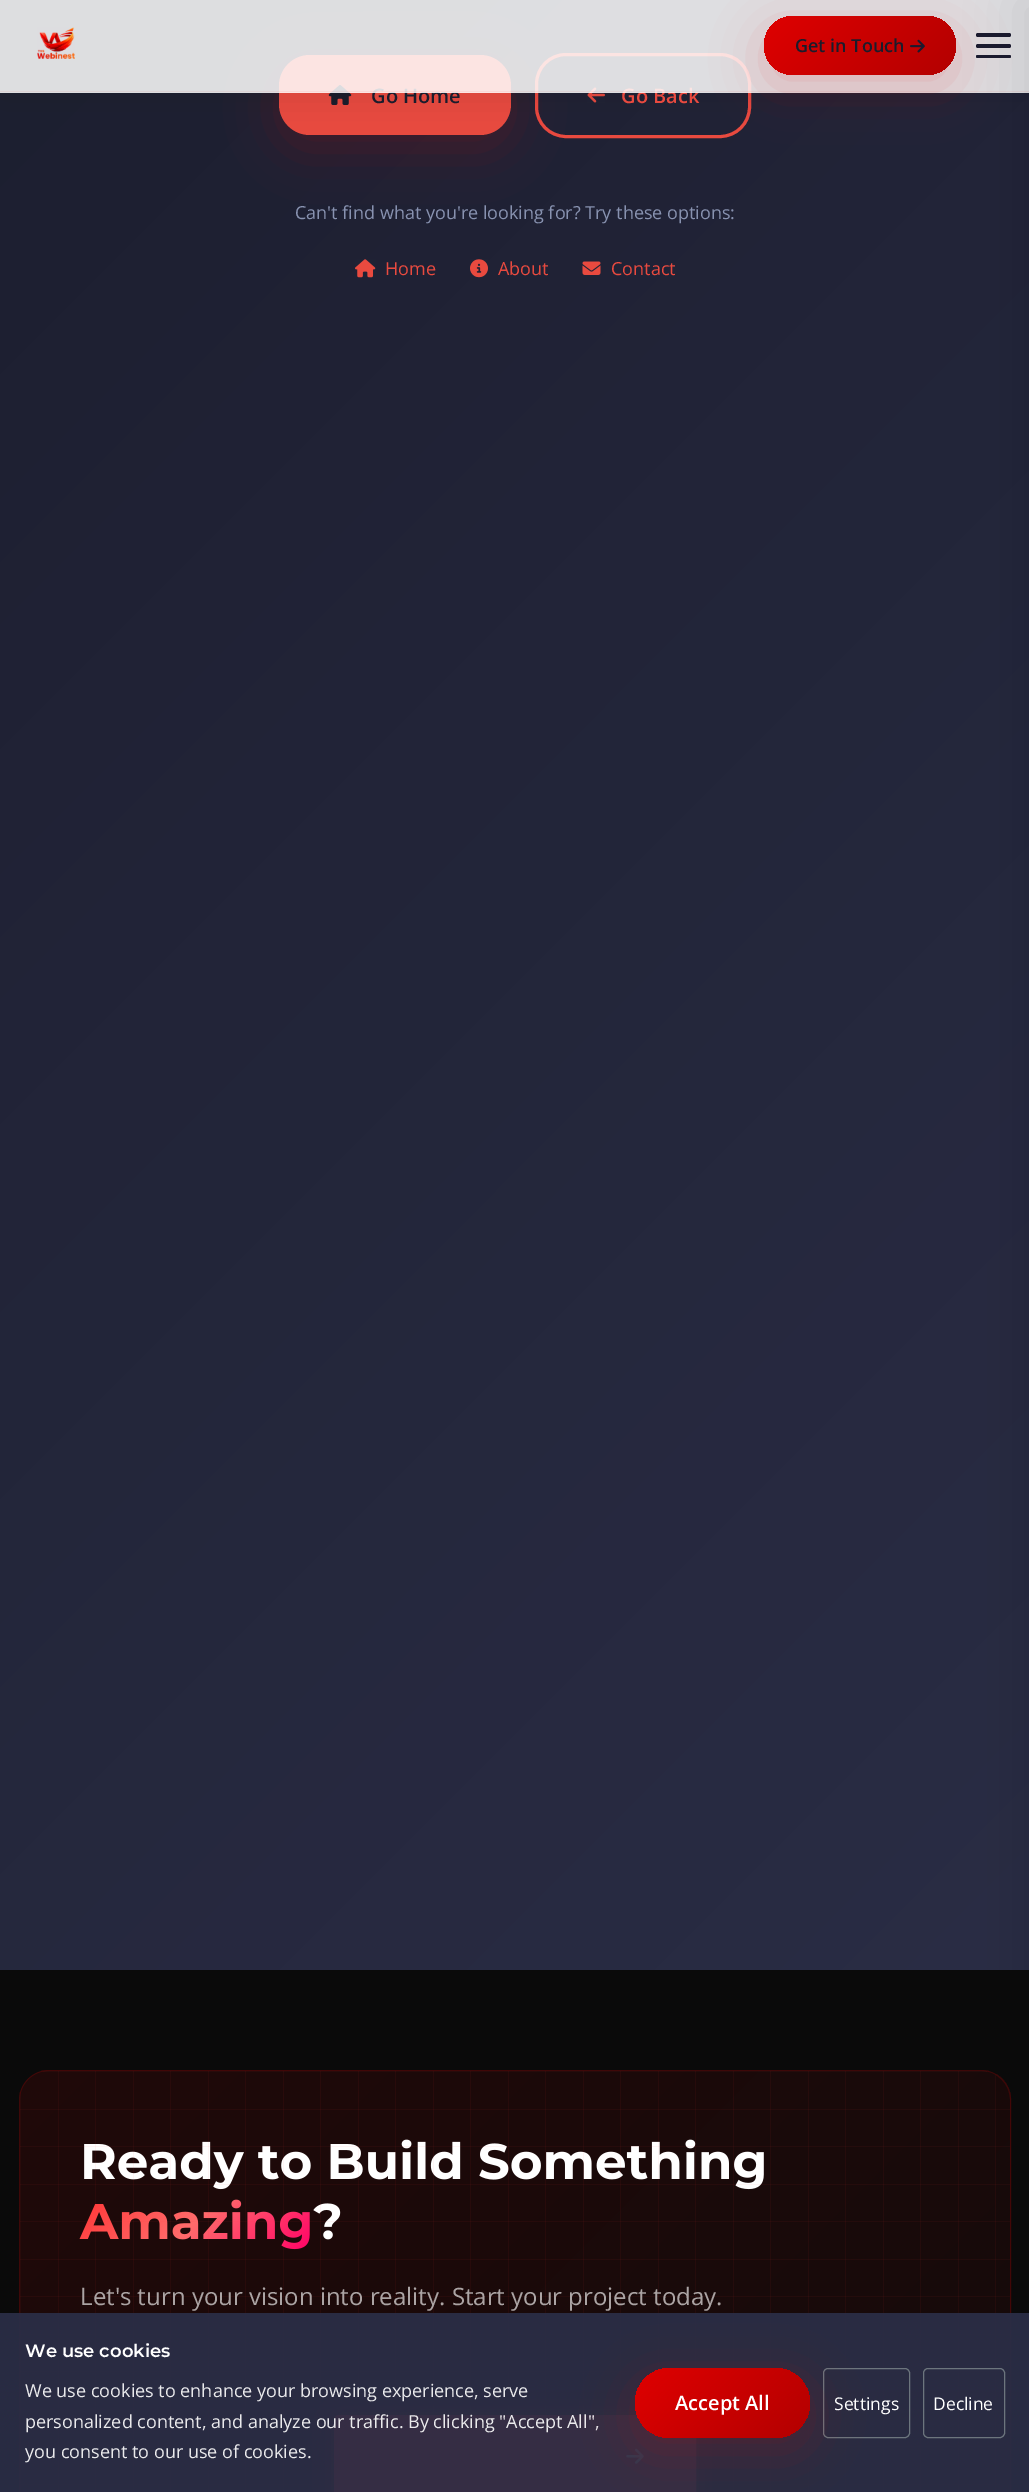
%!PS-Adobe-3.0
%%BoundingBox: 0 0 1029 2492
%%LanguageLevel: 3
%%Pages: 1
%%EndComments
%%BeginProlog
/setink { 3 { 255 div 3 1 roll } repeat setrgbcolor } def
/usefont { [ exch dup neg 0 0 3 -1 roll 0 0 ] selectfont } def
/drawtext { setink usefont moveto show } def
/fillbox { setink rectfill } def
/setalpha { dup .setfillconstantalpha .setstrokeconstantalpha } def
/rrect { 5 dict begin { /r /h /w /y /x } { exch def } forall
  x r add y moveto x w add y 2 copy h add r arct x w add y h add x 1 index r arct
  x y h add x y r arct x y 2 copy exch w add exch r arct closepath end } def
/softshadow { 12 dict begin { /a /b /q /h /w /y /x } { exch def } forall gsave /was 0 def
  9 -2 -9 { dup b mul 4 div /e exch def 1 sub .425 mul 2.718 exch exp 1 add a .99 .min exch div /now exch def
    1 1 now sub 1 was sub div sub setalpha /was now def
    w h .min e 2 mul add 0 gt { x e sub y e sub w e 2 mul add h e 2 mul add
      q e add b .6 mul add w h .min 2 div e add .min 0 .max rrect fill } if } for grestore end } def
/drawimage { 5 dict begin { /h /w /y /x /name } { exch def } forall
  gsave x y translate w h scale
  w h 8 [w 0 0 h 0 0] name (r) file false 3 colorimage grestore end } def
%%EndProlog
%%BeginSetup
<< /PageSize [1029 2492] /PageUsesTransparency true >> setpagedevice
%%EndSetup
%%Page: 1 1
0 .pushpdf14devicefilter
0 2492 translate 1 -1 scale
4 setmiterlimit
0 0 1029 2492 10 10 10 fillbox
gsave 0 0 moveto 1029 0 lineto 1029 1970 lineto 0 1970 lineto closepath clip newpath
<< /ShadingType 2 /ColorSpace /DeviceRGB /Coords [-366 -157 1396 1604] /Extend [true true] /Function << /FunctionType 2 /Domain [0 1] /C0 [0.102 0.11 0.173] /C1 [0.165 0.176 0.271] /N 1 >> >> shfill grestore
233 74 63 setink
3 setlinewidth
536.5 54.5 213 82 29.5 rrect stroke
223 0 0 setink
279 68 232 80 31 25 0.2 softshadow
233 74 63 setink
279 55 232 80 31 rrect fill
(assets/img3.rgb) 328 85 24 20 drawimage
(assets/img4.rgb) 587 87 18 16 drawimage
gsave
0 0 moveto 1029 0 lineto 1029 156 lineto 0 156 lineto closepath 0 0 moveto 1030 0 lineto 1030 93 lineto 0 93 lineto closepath eoclip newpath
0 0 0 setink
0 5 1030 93 0 19 0.08 softshadow
grestore
(Go Home) 371 103 /OpenSans-SemiBold 20 26 28 44 drawtext
(Go Back) 621 103 /OpenSans-SemiBold 20 233 74 63 drawtext
0.85 setalpha
0 0 1029 93 255 255 255 fillbox
0.05 setalpha
0 91 1029 1 223 0 0 fillbox
1 setalpha
(assets/img1.rgb) 37 27 38 32 drawimage
764 29 192 59 29.5 25 0.2 softshadow
gsave 764 16 192 59 29.5 rrect clip newpath
<< /ShadingType 2 /ColorSpace /DeviceRGB /Coords [797 -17 923 108] /Extend [true true] /Function << /FunctionType 2 /Domain [0 1] /C0 [0.875 0 0] /C1 [0.702 0 0] /N 1 >> >> shfill grestore
(Get in Touch) 795 52 /OpenSans-SemiBold 18 26 28 44 drawtext
(assets/img2.rgb) 910 39 15 14 drawimage
gsave
19 2070 992 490 30 rrect clip newpath
gsave 41 2070 moveto 989 2070 lineto 989 2071 lineto 41 2071 lineto closepath clip newpath
<< /ShadingType 2 /ColorSpace /DeviceRGB /Coords [146 1458 884 2197] /Extend [true true] /Function << /FunctionType 2 /Domain [0 1] /C0 [0.122 0.035 0.035] /C1 [0.082 0.039 0.039] /N 1 >> >> shfill grestore
gsave 20 2071 moveto 1010 2071 lineto 1010 2492 lineto 20 2492 lineto closepath clip newpath
<< /ShadingType 2 /ColorSpace /DeviceRGB /Coords [146 1946 884 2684] /Extend [true true] /Function << /FunctionType 2 /Domain [0 1] /C0 [0.122 0.035 0.035] /C1 [0.082 0.039 0.039] /N 1 >> >> shfill grestore
gsave 1010 2092 moveto 1011 2092 lineto 1011 2492 lineto 1010 2492 lineto closepath clip newpath
<< /ShadingType 2 /ColorSpace /DeviceRGB /Coords [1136 1946 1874 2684] /Extend [true true] /Function << /FunctionType 2 /Domain [0 1] /C0 [0.122 0.035 0.035] /C1 [0.082 0.039 0.039] /N 1 >> >> shfill grestore
gsave 19 2092 moveto 20 2092 lineto 20 2492 lineto 19 2492 lineto closepath clip newpath
<< /ShadingType 2 /ColorSpace /DeviceRGB /Coords [-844 1946 -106 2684] /Extend [true true] /Function << /FunctionType 2 /Domain [0 1] /C0 [0.122 0.035 0.035] /C1 [0.082 0.039 0.039] /N 1 >> >> shfill grestore
grestore
0.2 setalpha
223 0 0 setink
1 setlinewidth
19.5 2070.5 991 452 29.5 rrect stroke
1 setalpha
(Ready to Build Something) 80 2179 /Montserrat-Bold 50 255 255 255 drawtext
(Amazing) 80 2239 /Montserrat-Bold 50 255 66 92 drawtext
(?) 313 2239 /Montserrat-Bold 50 255 255 255 drawtext
(assets/img8.rgb) 20 2071 976 421 drawimage
0.05 setalpha
43 2071 944 1 255 51 51 fillbox
20 2109 990 1 255 51 51 fillbox
20 2146 990 1 255 51 51 fillbox
20 2184 990 1 255 51 51 fillbox
20 2221 990 1 255 51 51 fillbox
20 2259 990 1 255 51 51 fillbox
20 2296 990 1 255 51 51 fillbox
20 2334 990 1 255 51 51 fillbox
20 2371 990 1 255 51 51 fillbox
20 2409 990 1 255 51 51 fillbox
20 2446 990 1 255 51 51 fillbox
20 2484 990 1 255 51 51 fillbox
1 setalpha
0 0 0 setink
1018 0 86 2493 0 25 0.1 softshadow
26 26 46 setink
976 33 35 4 2 rrect fill
976 44 35 4 2 rrect fill
976 55 35 3 1.5 rrect fill
(Can't find what you're looking for? Try these options:) 295 219 /OpenSans-Regular 18 136 146 176 drawtext
(assets/img5.rgb) 355 259 21 19 drawimage
(Home) 385 275 /OpenSans-Regular 18 233 74 63 drawtext
(assets/img6.rgb) 470 259 18 19 drawimage
(About) 498 275 /OpenSans-Regular 18 233 74 63 drawtext
(assets/img7.rgb) 582 261 19 14 drawimage
(Contact) 611 275 /OpenSans-Regular 18 233 74 63 drawtext
(Let's turn your vision into reality. Start your project today.) 80 2305 /OpenSans-Regular 24 171 164 164 drawtext
255 51 51 setink
334 2415 362 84 5 12.5 0.4 softshadow
334.5 2415.5 361 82 4.5 rrect gsave fill grestore
stroke
(assets/img9.rgb) 626 2448 18 16 drawimage
0.95 setalpha
0 2313 1029 179 42 45 69 fillbox
1 setalpha
(We use cookies) 25 2357 /Montserrat-SemiBold 18 255 255 255 drawtext
(We use cookies to enhance your browsing experience, serve) 25 2397 /OpenSans-Regular 18 234 234 236 drawtext
(personalized content, and analyze our traffic. By clicking "Accept All",) 25 2428 /OpenSans-Regular 18 234 234 236 drawtext
(you consent to our use of cookies.) 25 2458 /OpenSans-Regular 18 234 234 236 drawtext
108 117 125 setink
823.5 2368.5 86 69 4.5 rrect stroke
223 0 0 setink
635 2380 175 70 35 25 0.2 softshadow
gsave 635 2368 175 70 35 rrect clip newpath
<< /ShadingType 2 /ColorSpace /DeviceRGB /Coords [661 2341 784 2464] /Extend [true true] /Function << /FunctionType 2 /Domain [0 1] /C0 [0.875 0 0] /C1 [0.702 0 0] /N 1 >> >> shfill grestore
(Accept All) 675 2410 /OpenSans-SemiBold 20 255 255 255 drawtext
(Settings) 834 2410 /OpenSans-Regular 17.5 255 255 255 drawtext
108 117 125 setink
923.5 2368.5 81 69 4.5 rrect stroke
(Decline) 933 2410 /OpenSans-Regular 17.5 255 255 255 drawtext
.poppdf14devicefilter showpage
%%EOF
